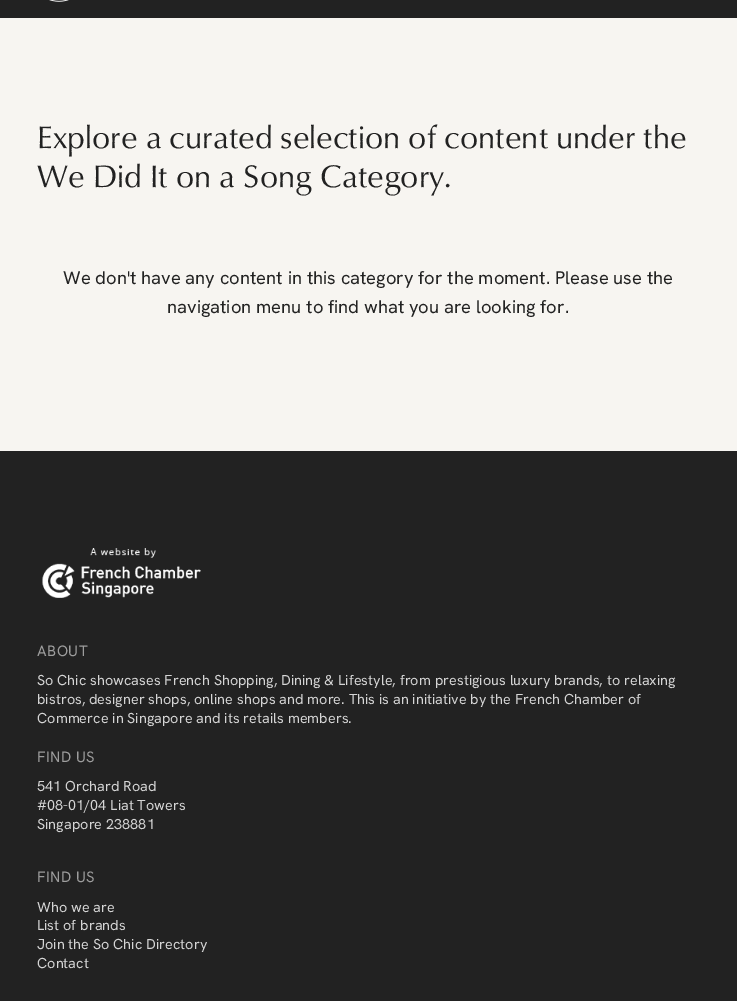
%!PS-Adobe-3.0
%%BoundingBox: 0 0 737 1001
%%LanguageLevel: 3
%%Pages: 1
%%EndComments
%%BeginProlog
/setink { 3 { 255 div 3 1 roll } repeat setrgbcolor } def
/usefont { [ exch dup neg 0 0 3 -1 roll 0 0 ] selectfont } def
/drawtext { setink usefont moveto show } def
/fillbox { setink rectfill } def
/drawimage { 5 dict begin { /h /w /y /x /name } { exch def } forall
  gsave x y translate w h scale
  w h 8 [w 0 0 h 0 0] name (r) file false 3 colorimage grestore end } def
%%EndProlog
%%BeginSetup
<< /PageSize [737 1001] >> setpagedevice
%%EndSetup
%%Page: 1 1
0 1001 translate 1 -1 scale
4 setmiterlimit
0 0 737 1001 247 245 241 fillbox
0 0 737 18 34 34 34 fillbox
(assets/img1.rgb) 49 0 20 2 drawimage
/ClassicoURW-Regular 32 usefont
37 148 moveto 0.05 0 (Explore a curated selection of content under the) ashow
37 187 moveto 0.05 0 (We Did It on a Song Category.) ashow
(We don't have any content in this category for the moment. Please use the) 63 284 /HankenGrotesk-Regular 18.4 34 34 34 drawtext
(navigation menu to find what you are looking for.) 167 313 /HankenGrotesk-Regular 18.4 34 34 34 drawtext
0 451 737 550 34 34 34 fillbox
(assets/img2.rgb) 42 548 159 50 drawimage
/HankenGrotesk-Regular 15 usefont
157 157 157 setink
37 656 moveto 0.5 0 (ABOUT) ashow
/HankenGrotesk-Regular 14.4 usefont
213 213 213 setink
37 685 moveto 0.05 0 (So Chic showcases French Shopping, Dining & Lifestyle, from prestigious luxury brands, to relaxing) ashow
37 704 moveto 0.05 0 (bistros, designer shops, online shops and more. This is an initiative by the French Chamber of) ashow
37 723 moveto 0.05 0 (Commerce in Singapore and its retails members.) ashow
/HankenGrotesk-Regular 15 usefont
157 157 157 setink
37 762 moveto 0.5 0 (FIND US) ashow
/HankenGrotesk-Regular 14.4 usefont
213 213 213 setink
37 791 moveto 0.05 0 (541 Orchard Road) ashow
37 810 moveto 0.05 0 (#08-01/04 Liat Towers) ashow
37 829 moveto 0.05 0 (Singapore 238881) ashow
/HankenGrotesk-Regular 15 usefont
157 157 157 setink
37 882 moveto 0.5 0 (FIND US) ashow
/HankenGrotesk-Regular 14.4 usefont
213 213 213 setink
37 912 moveto 0.05 0 (Who we are) ashow
37 930 moveto 0.05 0 (List of brands) ashow
37 949 moveto 0.05 0 (Join the So Chic Directory) ashow
37 968 moveto 0.05 0 (Contact) ashow
showpage
%%EOF
